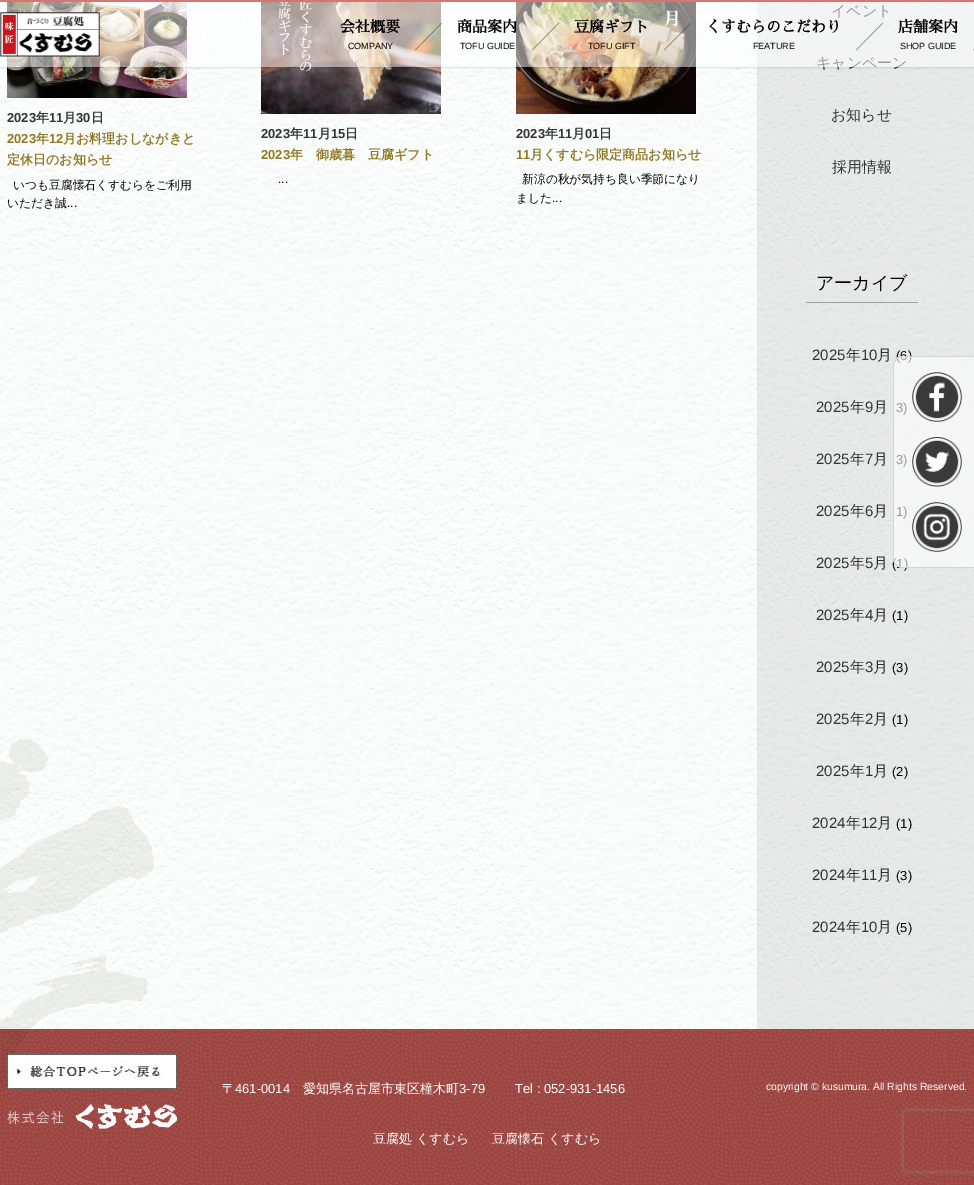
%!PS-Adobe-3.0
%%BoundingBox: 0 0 974 1185
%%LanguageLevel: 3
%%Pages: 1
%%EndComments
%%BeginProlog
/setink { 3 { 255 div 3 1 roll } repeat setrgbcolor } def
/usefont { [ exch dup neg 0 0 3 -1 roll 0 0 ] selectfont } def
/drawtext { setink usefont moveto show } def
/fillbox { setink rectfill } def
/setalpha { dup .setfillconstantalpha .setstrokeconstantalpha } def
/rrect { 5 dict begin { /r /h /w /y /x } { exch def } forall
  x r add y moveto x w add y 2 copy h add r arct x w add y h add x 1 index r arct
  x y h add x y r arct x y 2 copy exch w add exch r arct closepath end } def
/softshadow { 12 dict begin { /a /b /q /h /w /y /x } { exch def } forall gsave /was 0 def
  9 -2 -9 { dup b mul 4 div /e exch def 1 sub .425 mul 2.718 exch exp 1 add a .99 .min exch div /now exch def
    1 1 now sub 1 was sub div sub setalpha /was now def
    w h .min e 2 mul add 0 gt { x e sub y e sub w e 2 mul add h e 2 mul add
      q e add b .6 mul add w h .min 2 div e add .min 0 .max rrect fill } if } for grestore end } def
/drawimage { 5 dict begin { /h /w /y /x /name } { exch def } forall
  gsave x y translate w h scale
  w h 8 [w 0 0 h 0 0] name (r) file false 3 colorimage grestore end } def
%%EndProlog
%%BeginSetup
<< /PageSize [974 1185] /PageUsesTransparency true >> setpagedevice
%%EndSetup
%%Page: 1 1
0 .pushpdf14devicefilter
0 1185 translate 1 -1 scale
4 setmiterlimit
0 0 974 1185 255 255 255 fillbox
(assets/img1.rgb) 0 2 974 1027 drawimage
0.12 setalpha
757 2 217 1027 90 90 90 fillbox
1 setalpha
(assets/img2.rgb) 7 2 180 96 drawimage
(2023) 7 122 /LiberationSans-Bold 13 51 51 51 drawtext
(年) 36 122 /WenQuanYiZenHei-Bold 13 51 51 51 drawtext
(11) 49 122 /LiberationSans-Bold 13 51 51 51 drawtext
(月) 63 122 /WenQuanYiZenHei-Bold 13 51 51 51 drawtext
(30) 76 122 /LiberationSans-Bold 13 51 51 51 drawtext
(日) 91 122 /WenQuanYiZenHei-Bold 13 51 51 51 drawtext
(2023) 7 143 /LiberationSans-Bold 13 144 120 36 drawtext
(年) 36 143 /WenQuanYiZenHei-Bold 13 144 120 36 drawtext
(12) 49 143 /LiberationSans-Bold 13 144 120 36 drawtext
(月お料理おしながきと) 63 143 /WenQuanYiZenHei-Bold 13 144 120 36 drawtext
(定休日のお知らせ) 7 164 /WenQuanYiZenHei-Bold 13 144 120 36 drawtext
(いつも豆腐懐石くすむらをご利用) 13 189 /WenQuanYiZenHei-Medium 11.75 0 0 0 drawtext
(いただき誠) 7 207 /WenQuanYiZenHei-Medium 11.75 0 0 0 drawtext
(...) 67 207 /LiberationSans-Regular 11.75 0 0 0 drawtext
(assets/img3.rgb) 261 2 180 112 drawimage
(2023) 261 138 /LiberationSans-Bold 13 51 51 51 drawtext
(年) 290 138 /WenQuanYiZenHei-Bold 13 51 51 51 drawtext
(11) 303 138 /LiberationSans-Bold 13 51 51 51 drawtext
(月) 318 138 /WenQuanYiZenHei-Bold 13 51 51 51 drawtext
(15) 331 138 /LiberationSans-Bold 13 51 51 51 drawtext
(日) 345 138 /WenQuanYiZenHei-Bold 13 51 51 51 drawtext
(2023) 261 159 /LiberationSans-Bold 13 144 120 36 drawtext
(年　御歳暮　豆腐ギフト) 290 159 /WenQuanYiZenHei-Bold 13 144 120 36 drawtext
(...) 278 183 /LiberationSans-Regular 11.75 0 0 0 drawtext
(assets/img4.rgb) 516 2 180 112 drawimage
(2023) 516 138 /LiberationSans-Bold 13 51 51 51 drawtext
(年) 545 138 /WenQuanYiZenHei-Bold 13 51 51 51 drawtext
(11) 558 138 /LiberationSans-Bold 13 51 51 51 drawtext
(月) 572 138 /WenQuanYiZenHei-Bold 13 51 51 51 drawtext
(01) 585 138 /LiberationSans-Bold 13 51 51 51 drawtext
(日) 599 138 /WenQuanYiZenHei-Bold 13 51 51 51 drawtext
(11) 516 159 /LiberationSans-Bold 13 144 120 36 drawtext
(月くすむら限定商品お知らせ) 530 159 /WenQuanYiZenHei-Bold 13 144 120 36 drawtext
(新涼の秋が気持ち良い季節になり) 522 183 /WenQuanYiZenHei-Medium 11.75 0 0 0 drawtext
(ました) 516 202 /WenQuanYiZenHei-Medium 11.75 0 0 0 drawtext
(...) 552 202 /LiberationSans-Regular 11.75 0 0 0 drawtext
(イベント) 831 16 /WenQuanYiZenHei-Medium 15 51 51 51 drawtext
(キャンペーン) 816 68 /WenQuanYiZenHei-Medium 15 51 51 51 drawtext
(お知らせ) 831 120 /WenQuanYiZenHei-Medium 15 51 51 51 drawtext
(採用情報) 832 172 /WenQuanYiZenHei-Medium 15 51 51 51 drawtext
806 302 112 1 161 161 161 fillbox
(アーカイブ) 816 289 /WenQuanYiZenHei-Medium 18 0 0 0 drawtext
(2025) 812 360 /LiberationSans-Regular 15 51 51 51 drawtext
(年) 846 360 /WenQuanYiZenHei-Medium 15 51 51 51 drawtext
(10) 861 360 /LiberationSans-Regular 15 51 51 51 drawtext
(月) 877 360 /WenQuanYiZenHei-Medium 15 51 51 51 drawtext
(\(6\)) 896 360 /LiberationSans-Regular 13 0 0 0 drawtext
(2025) 816 412 /LiberationSans-Regular 15 51 51 51 drawtext
(年) 850 412 /WenQuanYiZenHei-Medium 15 51 51 51 drawtext
(9) 865 412 /LiberationSans-Regular 15 51 51 51 drawtext
(月) 873 412 /WenQuanYiZenHei-Medium 15 51 51 51 drawtext
(3\)) 896 412 /LiberationSans-Regular 13 0 0 0 drawtext
(2025) 816 464 /LiberationSans-Regular 15 51 51 51 drawtext
(年) 850 464 /WenQuanYiZenHei-Medium 15 51 51 51 drawtext
(7) 865 464 /LiberationSans-Regular 15 51 51 51 drawtext
(月) 873 464 /WenQuanYiZenHei-Medium 15 51 51 51 drawtext
(3\)) 896 464 /LiberationSans-Regular 13 0 0 0 drawtext
(2025) 816 516 /LiberationSans-Regular 15 51 51 51 drawtext
(年) 850 516 /WenQuanYiZenHei-Medium 15 51 51 51 drawtext
(6) 865 516 /LiberationSans-Regular 15 51 51 51 drawtext
(月) 873 516 /WenQuanYiZenHei-Medium 15 51 51 51 drawtext
(1\)) 896 516 /LiberationSans-Regular 13 0 0 0 drawtext
(2025) 816 568 /LiberationSans-Regular 15 51 51 51 drawtext
(年) 850 568 /WenQuanYiZenHei-Medium 15 51 51 51 drawtext
(5) 865 568 /LiberationSans-Regular 15 51 51 51 drawtext
(月) 873 568 /WenQuanYiZenHei-Medium 15 51 51 51 drawtext
(\(1\)) 892 568 /LiberationSans-Regular 13 0 0 0 drawtext
(2025) 816 620 /LiberationSans-Regular 15 51 51 51 drawtext
(年) 850 620 /WenQuanYiZenHei-Medium 15 51 51 51 drawtext
(4) 865 620 /LiberationSans-Regular 15 51 51 51 drawtext
(月) 873 620 /WenQuanYiZenHei-Medium 15 51 51 51 drawtext
(\(1\)) 892 620 /LiberationSans-Regular 13 0 0 0 drawtext
(2025) 816 672 /LiberationSans-Regular 15 51 51 51 drawtext
(年) 850 672 /WenQuanYiZenHei-Medium 15 51 51 51 drawtext
(3) 865 672 /LiberationSans-Regular 15 51 51 51 drawtext
(月) 873 672 /WenQuanYiZenHei-Medium 15 51 51 51 drawtext
(\(3\)) 892 672 /LiberationSans-Regular 13 0 0 0 drawtext
(2025) 816 724 /LiberationSans-Regular 15 51 51 51 drawtext
(年) 850 724 /WenQuanYiZenHei-Medium 15 51 51 51 drawtext
(2) 865 724 /LiberationSans-Regular 15 51 51 51 drawtext
(月) 873 724 /WenQuanYiZenHei-Medium 15 51 51 51 drawtext
(\(1\)) 892 724 /LiberationSans-Regular 13 0 0 0 drawtext
(2025) 816 776 /LiberationSans-Regular 15 51 51 51 drawtext
(年) 850 776 /WenQuanYiZenHei-Medium 15 51 51 51 drawtext
(1) 865 776 /LiberationSans-Regular 15 51 51 51 drawtext
(月) 873 776 /WenQuanYiZenHei-Medium 15 51 51 51 drawtext
(\(2\)) 892 776 /LiberationSans-Regular 13 0 0 0 drawtext
(2024) 812 828 /LiberationSans-Regular 15 51 51 51 drawtext
(年) 846 828 /WenQuanYiZenHei-Medium 15 51 51 51 drawtext
(12) 861 828 /LiberationSans-Regular 15 51 51 51 drawtext
(月) 877 828 /WenQuanYiZenHei-Medium 15 51 51 51 drawtext
(\(1\)) 896 828 /LiberationSans-Regular 13 0 0 0 drawtext
(2024) 812 880 /LiberationSans-Regular 15 51 51 51 drawtext
(年) 846 880 /WenQuanYiZenHei-Medium 15 51 51 51 drawtext
(11) 861 880 /LiberationSans-Regular 15 51 51 51 drawtext
(月) 877 880 /WenQuanYiZenHei-Medium 15 51 51 51 drawtext
(\(3\)) 896 880 /LiberationSans-Regular 13 0 0 0 drawtext
(2024) 812 932 /LiberationSans-Regular 15 51 51 51 drawtext
(年) 846 932 /WenQuanYiZenHei-Medium 15 51 51 51 drawtext
(10) 861 932 /LiberationSans-Regular 15 51 51 51 drawtext
(月) 877 932 /WenQuanYiZenHei-Medium 15 51 51 51 drawtext
(\(5\)) 896 932 /LiberationSans-Regular 13 0 0 0 drawtext
gsave
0 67 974 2 rectclip
0 0 974 67 0 1.5 0.2 softshadow
grestore
0.5 setalpha
0 2 974 65 255 255 255 fillbox
1 setalpha
0 0 974 2 214 118 115 fillbox
(assets/img5.rgb) 0 12 100 45 drawimage
(assets/img6.rgb) 415 22 27 29 drawimage
(会社概要) 340 32 /SawarabiMincho-Bold 15 0 0 0 drawtext
(COMPANY) 348 49 /LiberationSans-Regular 9 0 0 0 drawtext
(assets/img7.rgb) 532 22 27 29 drawimage
(商品案内) 457 32 /SawarabiMincho-Bold 15 0 0 0 drawtext
(TOFU GUIDE) 460 49 /LiberationSans-Regular 9 0 0 0 drawtext
(assets/img8.rgb) 664 22 27 29 drawimage
(豆腐ギフト) 574 32 /SawarabiMincho-Bold 15 0 0 0 drawtext
(TOFU GIFT) 588 49 /LiberationSans-Regular 9 0 0 0 drawtext
(assets/img9.rgb) 856 22 27 29 drawimage
(くすむらのこだわり) 706 32 /SawarabiMincho-Bold 15 0 0 0 drawtext
(FEATURE) 753 49 /LiberationSans-Regular 9 0 0 0 drawtext
(assets/img10.rgb) 973 48 1 3 drawimage
(店舗案内) 898 32 /SawarabiMincho-Bold 15 0 0 0 drawtext
(SHOP GUIDE) 900 49 /LiberationSans-Regular 9 0 0 0 drawtext
(assets/img11.rgb) 0 1029 974 156 drawimage
(assets/img12.rgb) 0 739 154 353 drawimage
(assets/img13.rgb) 7 1054 170 35 drawimage
(assets/img14.rgb) 7 1104 170 25 drawimage
(〒) 222 1093 /WenQuanYiZenHei-Medium 13 255 255 255 drawtext
(461-0014) 235 1093 /LiberationSans-Regular 13 255 255 255 drawtext
(愛知県名古屋市東区橦木町) 303 1093 /WenQuanYiZenHei-Medium 13 255 255 255 drawtext
(3-79) 459 1093 /LiberationSans-Regular 13 255 255 255 drawtext
(Tel : 052-931-1456) 515 1093 /LiberationSans-Regular 13 255 255 255 drawtext
(copyright © kusumura. All Rights Reserved.) 766 1090 /LiberationSans-Regular 10.4 255 255 255 drawtext
(豆腐処 くすむら) 373 1143 /WenQuanYiZenHei-Medium 13 255 255 255 drawtext
(豆腐懐石 くすむら) 492 1143 /WenQuanYiZenHei-Medium 13 255 255 255 drawtext
0.6 setalpha
903 356 moveto 974 356 lineto 974 568 lineto 903 568 lineto 897.5 568 893 563.5 893 558 curveto 893 366 lineto 893 360.5 897.5 356 903 356 curveto closepath fill
1 setalpha
213 213 213 setink
903 356 moveto 974 356 lineto 974 568 lineto 903 568 lineto 897 568 893 564 893 558 curveto 893 366 lineto 893 360 897 356 903 356 curveto closepath 903 357 moveto 974 357 lineto 974 567 lineto 903 567 lineto 898 567 894 563 894 558 curveto 894 366 lineto 894 361 898 357 903 357 curveto closepath eofill
(assets/img15.rgb) 912 372 50 50 drawimage
(assets/img16.rgb) 912 437 50 50 drawimage
(assets/img17.rgb) 912 502 50 50 drawimage
gsave
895 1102 moveto 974 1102 lineto 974 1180 lineto 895 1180 lineto closepath 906 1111 moveto 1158 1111 lineto 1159 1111 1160 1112 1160 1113 curveto 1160 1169 lineto 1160 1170 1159 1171 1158 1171 curveto 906 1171 lineto 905 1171 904 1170 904 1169 curveto 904 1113 lineto 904 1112 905 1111 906 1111 curveto closepath eoclip newpath
128 128 128 setink
904 1111 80 60 2 2.5 1 softshadow
grestore
.poppdf14devicefilter showpage
%%EOF
